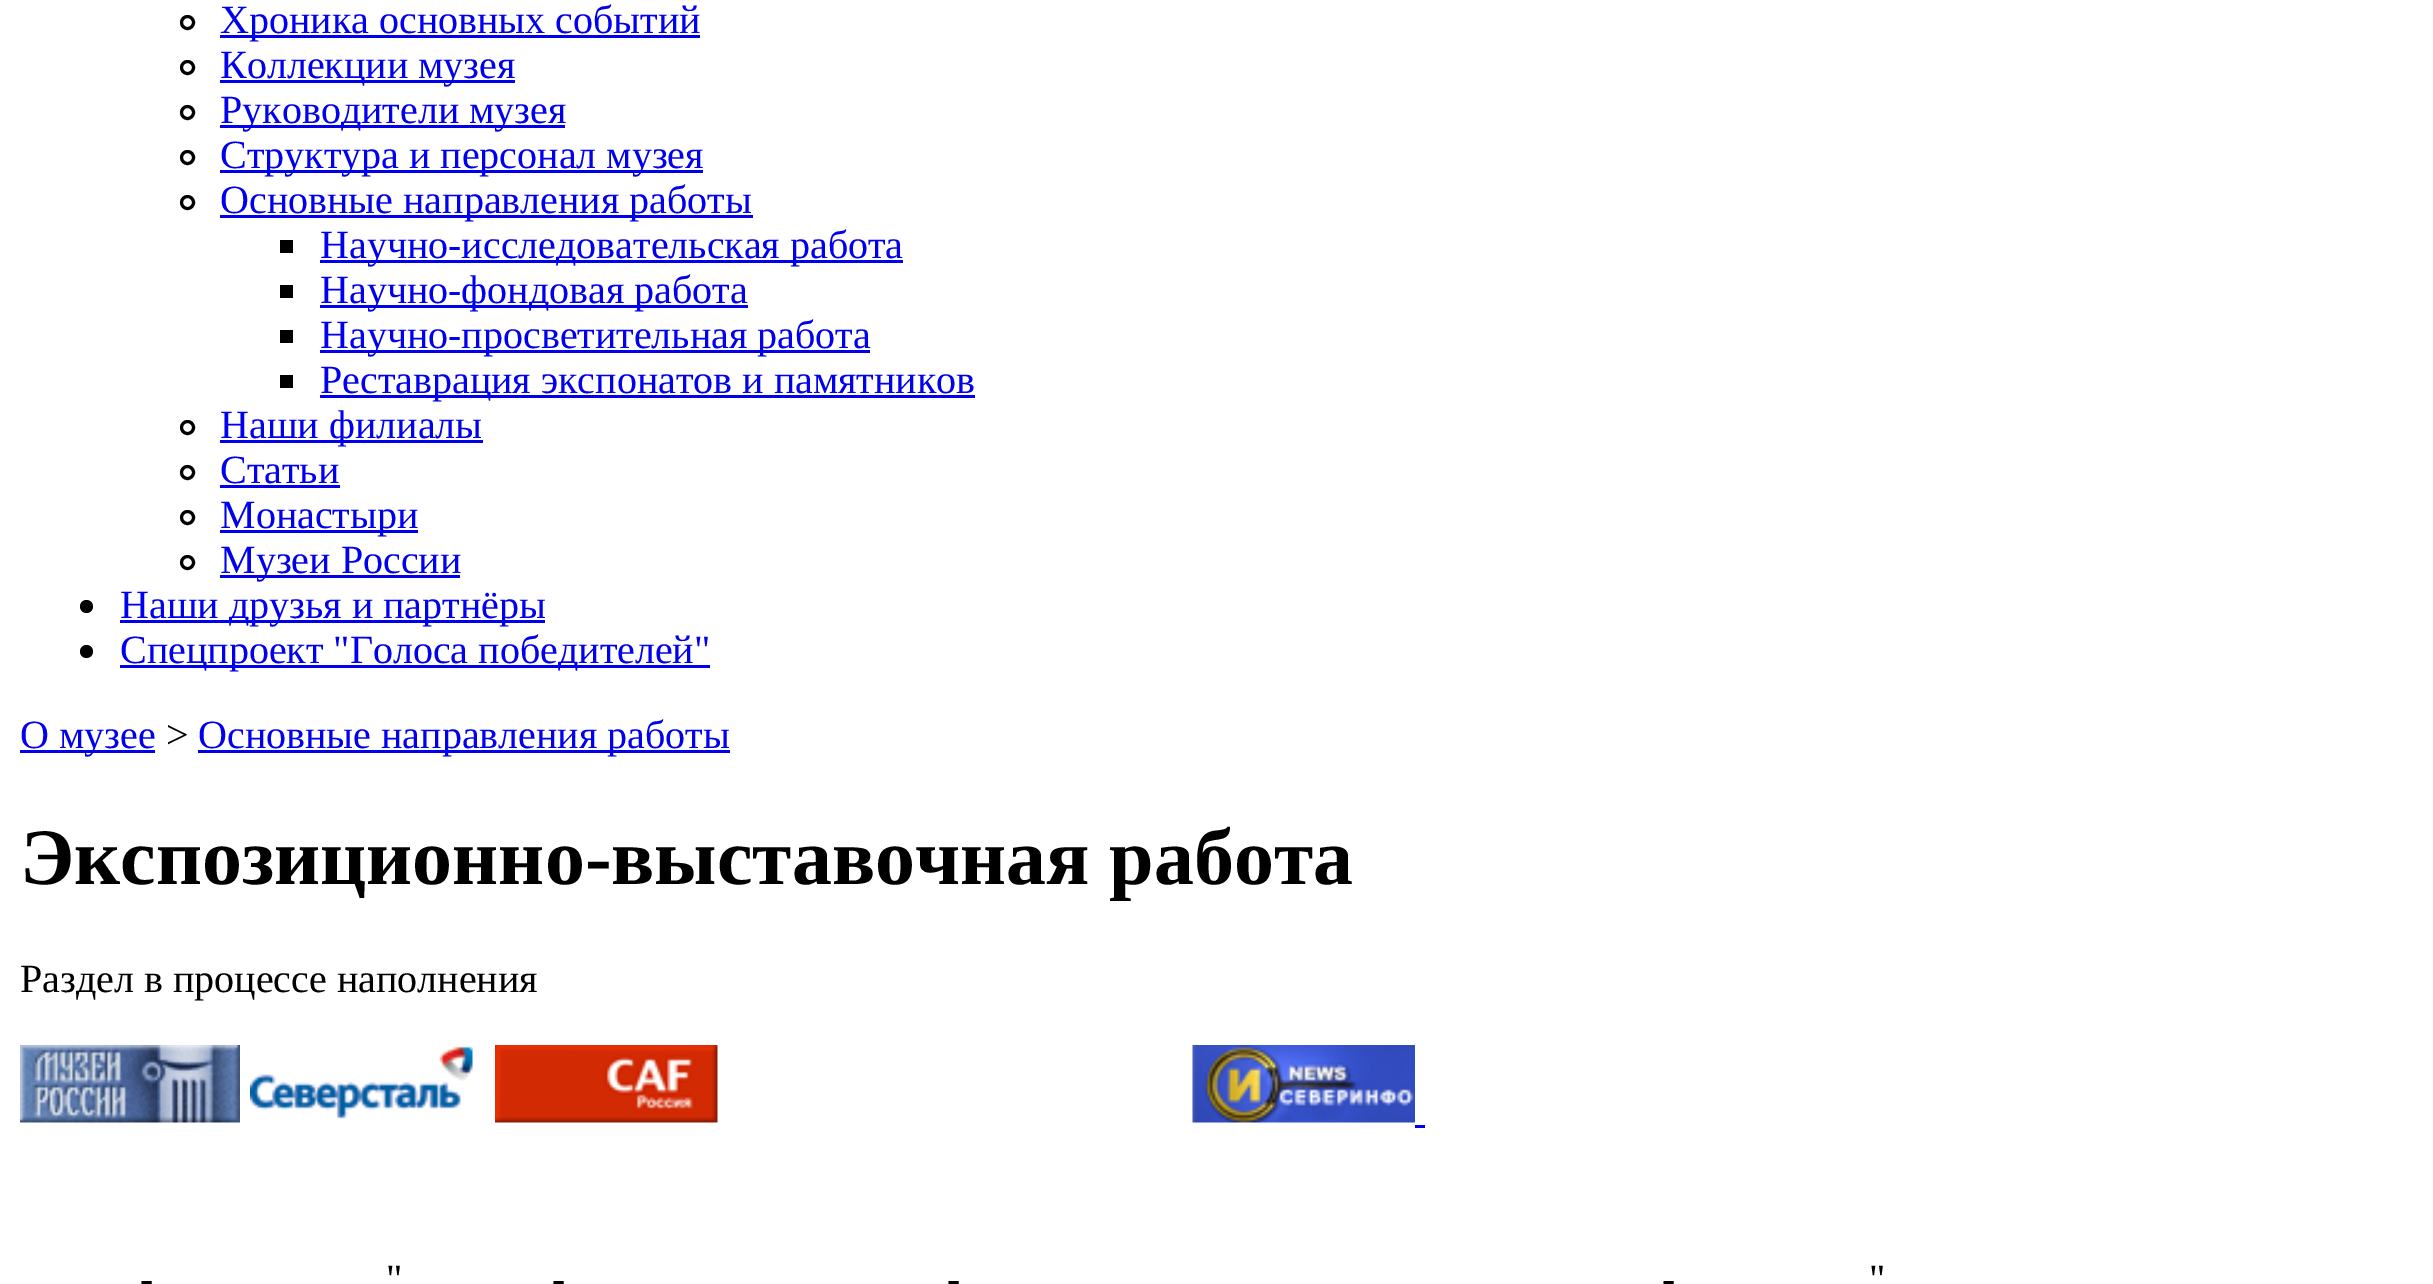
%!PS-Adobe-3.0
%%BoundingBox: 0 0 2433 1284
%%LanguageLevel: 3
%%Pages: 1
%%EndComments
%%BeginProlog
/setink { 3 { 255 div 3 1 roll } repeat setrgbcolor } def
/usefont { [ exch dup neg 0 0 3 -1 roll 0 0 ] selectfont } def
/drawtext { setink usefont moveto show } def
/fillbox { setink rectfill } def
/disc { newpath 0 360 arc closepath } def
/drawimage { 5 dict begin { /h /w /y /x /name } { exch def } forall
  gsave x y translate w h scale
  w h 8 [w 0 0 h 0 0] name (r) file false 3 colorimage grestore end } def
%%EndProlog
%%BeginSetup
<< /PageSize [2433 1284] >> setpagedevice
%%EndSetup
%%Page: 1 1
0 1284 translate 1 -1 scale
4 setmiterlimit
0 0 2433 1284 255 255 255 fillbox
0 0 0 setink
3 setlinewidth
187.5 22.5 6 disc stroke
220 35 480 3 0 0 238 fillbox
(Хроника основных событий) 220 33 /LiberationSerif-Regular 40 0 0 238 drawtext
0 0 0 setink
187.5 67.5 6 disc stroke
220 80 295 3 0 0 238 fillbox
(Коллекции музея) 220 78 /LiberationSerif-Regular 40 0 0 238 drawtext
0 0 0 setink
187.5 112.5 6 disc stroke
220 125 345 3 0 0 238 fillbox
(Руководители музея) 220 123 /LiberationSerif-Regular 40 0 0 238 drawtext
0 0 0 setink
187.5 157.5 6 disc stroke
220 170 483 3 0 0 238 fillbox
(Структура и персонал музея) 220 168 /LiberationSerif-Regular 40 0 0 238 drawtext
0 0 0 setink
187.5 202.5 6 disc stroke
220 215 533 3 0 0 238 fillbox
(Основные направления работы) 220 213 /LiberationSerif-Regular 40 0 0 238 drawtext
280 240 13 13 0 0 0 fillbox
320 260 583 3 0 0 238 fillbox
(Научно-исследовательская работа) 320 258 /LiberationSerif-Regular 40 0 0 238 drawtext
280 285 13 13 0 0 0 fillbox
320 305 428 3 0 0 238 fillbox
(Научно-фондовая работа) 320 303 /LiberationSerif-Regular 40 0 0 238 drawtext
280 330 13 13 0 0 0 fillbox
320 350 550 3 0 0 238 fillbox
(Научно-просветительная работа) 320 348 /LiberationSerif-Regular 40 0 0 238 drawtext
280 375 13 13 0 0 0 fillbox
320 395 655 3 0 0 238 fillbox
(Реставрация экспонатов и памятников) 320 393 /LiberationSerif-Regular 40 0 0 238 drawtext
0 0 0 setink
187.5 427.5 6 disc stroke
220 440 263 3 0 0 238 fillbox
(Наши филиалы) 220 438 /LiberationSerif-Regular 40 0 0 238 drawtext
0 0 0 setink
187.5 472.5 6 disc stroke
(Статьи) 220 483 /LiberationSerif-Regular 40 0 0 238 drawtext
220 485 120 3 0 0 238 fillbox
0 0 0 setink
187.5 517.5 6 disc stroke
220 530 198 3 0 0 238 fillbox
(Монастыри) 220 528 /LiberationSerif-Regular 40 0 0 238 drawtext
0 0 0 setink
187.5 562.5 6 disc stroke
220 575 240 3 0 0 238 fillbox
(Музеи России) 220 573 /LiberationSerif-Regular 40 0 0 238 drawtext
0 0 0 setink
86.5 606.5 6.5 disc fill
120 620 425 3 0 0 238 fillbox
(Наши друзья и партнёры) 120 618 /LiberationSerif-Regular 40 0 0 238 drawtext
0 0 0 setink
86.5 651.5 6.5 disc fill
120 665 590 3 0 0 238 fillbox
(Спецпроект "Голоса победителей") 120 663 /LiberationSerif-Regular 40 0 0 238 drawtext
20 750 135 3 0 0 238 fillbox
(О музее) 20 748 /LiberationSerif-Regular 40 0 0 238 drawtext
(>) 166 748 /LiberationSerif-Regular 40 0 0 0 drawtext
198 750 532 3 0 0 238 fillbox
(Основные направления работы) 198 748 /LiberationSerif-Regular 40 0 0 238 drawtext
(Экспозиционно-выставочная работа) 20 884 /LiberationSerif-Bold 80 0 0 0 drawtext
(Раздел в процессе наполнения) 20 992 /LiberationSerif-Regular 40 0 0 0 drawtext
(assets/img1.rgb) 20 1045 220 78 drawimage
(assets/img2.rgb) 250 1046 223 73 drawimage
(assets/img3.rgb) 495 1045 223 78 drawimage
(assets/img4.rgb) 1192 1045 223 78 drawimage
1415 1125 10 3 0 0 238 fillbox
(") 386 1292 /LiberationSerif-Regular 40 0 0 0 drawtext
(") 1869 1292 /LiberationSerif-Regular 40 0 0 0 drawtext
(-) 140 1292 /LiberationSerif-Regular 40 0 0 0 drawtext
(-) 552 1292 /LiberationSerif-Regular 40 0 0 0 drawtext
(-) 947 1292 /LiberationSerif-Regular 40 0 0 0 drawtext
(-) 1662 1292 /LiberationSerif-Regular 40 0 0 0 drawtext
showpage
%%EOF
